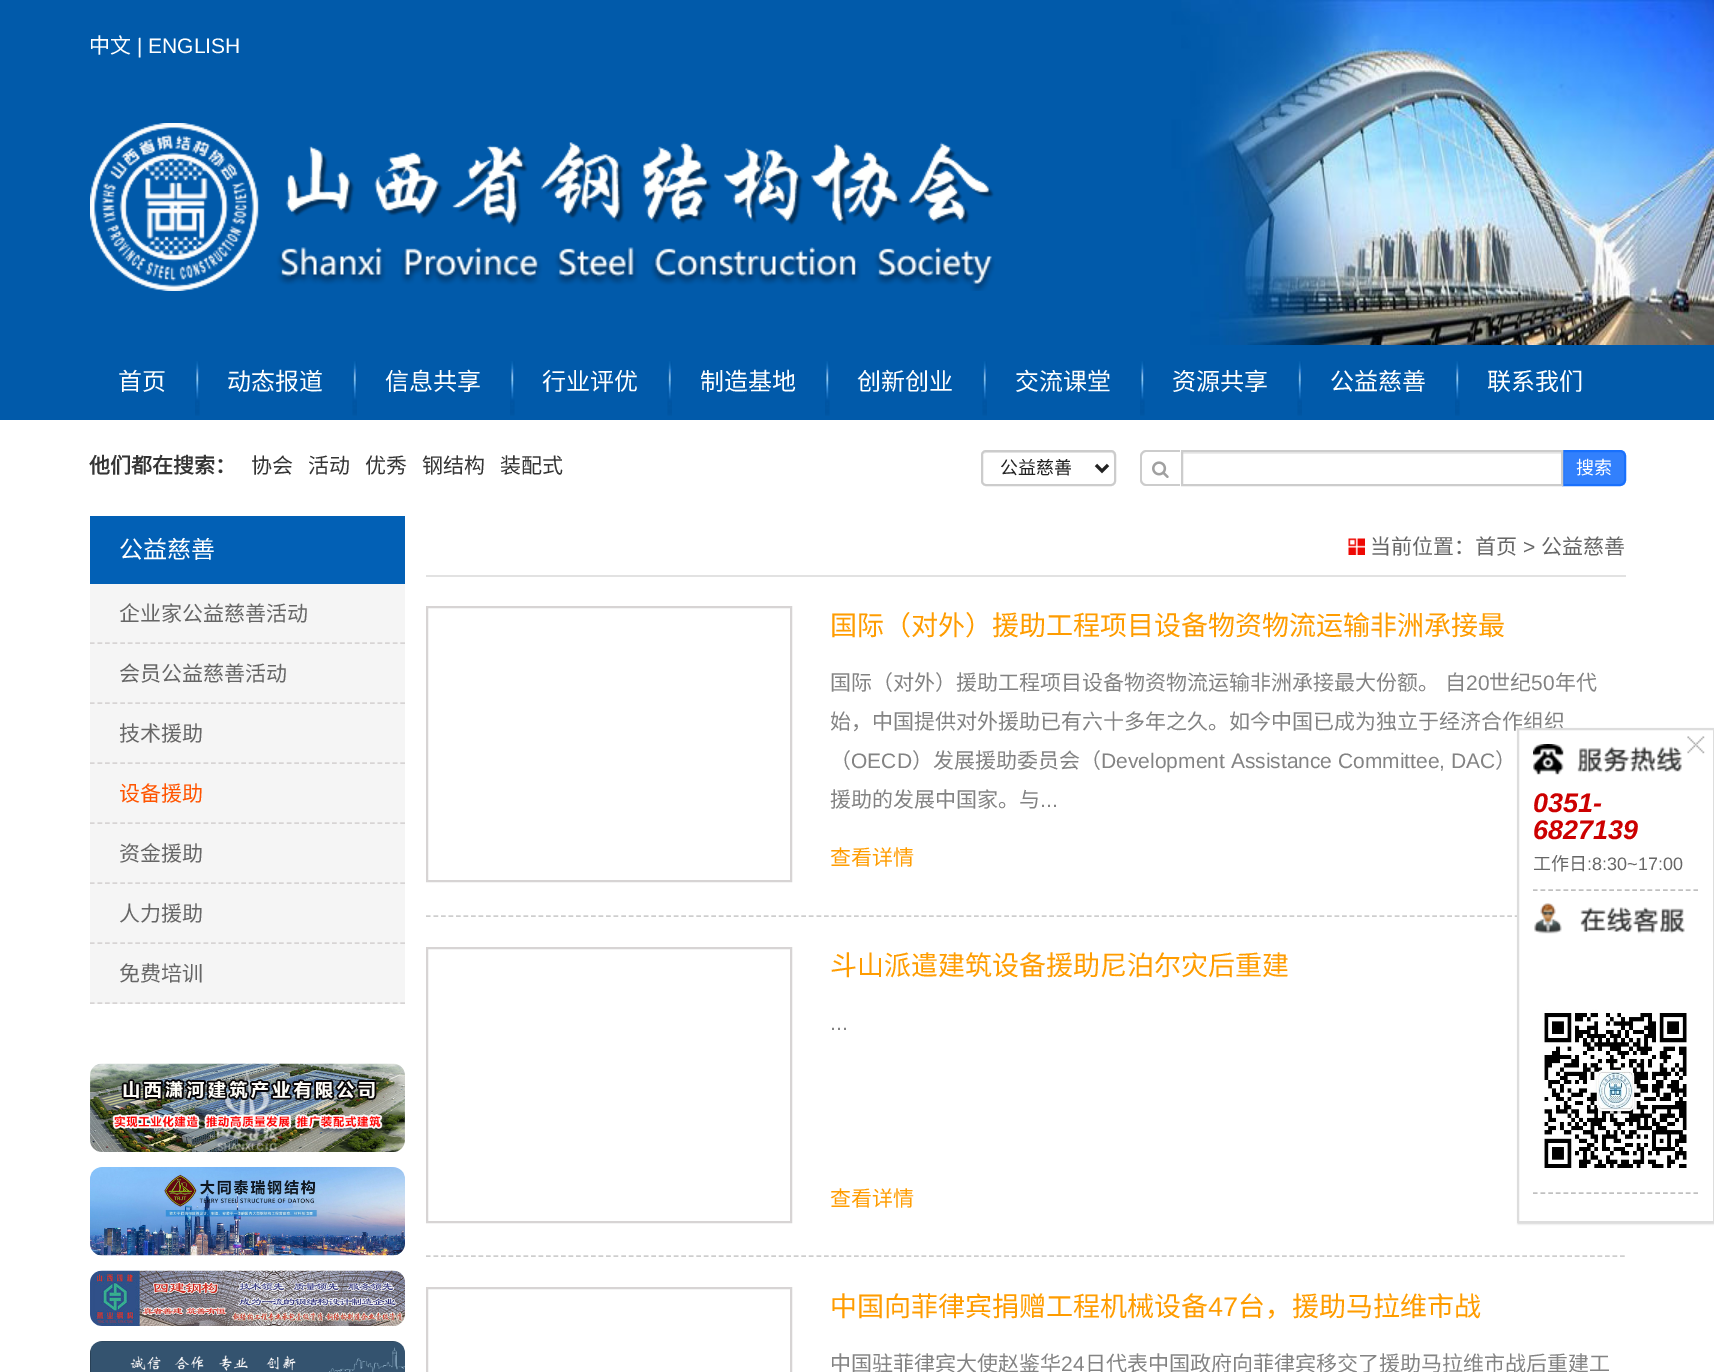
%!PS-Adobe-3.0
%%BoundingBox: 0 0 1714 1372
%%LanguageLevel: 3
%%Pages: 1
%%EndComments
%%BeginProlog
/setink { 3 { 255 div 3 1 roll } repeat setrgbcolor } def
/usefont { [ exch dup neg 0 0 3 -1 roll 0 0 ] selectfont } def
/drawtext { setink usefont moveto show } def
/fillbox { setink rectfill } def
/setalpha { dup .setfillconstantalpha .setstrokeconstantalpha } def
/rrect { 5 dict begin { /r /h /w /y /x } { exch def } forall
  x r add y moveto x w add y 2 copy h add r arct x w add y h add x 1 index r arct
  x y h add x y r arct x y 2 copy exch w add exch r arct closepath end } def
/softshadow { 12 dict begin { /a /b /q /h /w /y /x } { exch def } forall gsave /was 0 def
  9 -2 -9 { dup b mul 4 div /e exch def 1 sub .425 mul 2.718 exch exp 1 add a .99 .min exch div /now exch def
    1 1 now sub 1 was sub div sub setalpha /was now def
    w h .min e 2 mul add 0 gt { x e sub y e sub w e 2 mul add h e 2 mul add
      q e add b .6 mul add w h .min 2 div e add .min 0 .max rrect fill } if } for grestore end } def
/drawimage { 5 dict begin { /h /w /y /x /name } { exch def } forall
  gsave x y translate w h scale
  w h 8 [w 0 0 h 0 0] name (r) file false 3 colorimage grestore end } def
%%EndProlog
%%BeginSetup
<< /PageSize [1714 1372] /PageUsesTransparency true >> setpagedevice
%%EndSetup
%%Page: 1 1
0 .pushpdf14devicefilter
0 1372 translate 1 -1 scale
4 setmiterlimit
0 0 1714 1372 255 255 255 fillbox
(assets/img1.rgb) 0 0 1714 345 drawimage
(中文) 89 53 /NotoSansCJKSC-Regular 21 255 255 255 drawtext
(| ENGLISH) 137 53 /LiberationSans-Regular 21 255 255 255 drawtext
(assets/img2.rgb) 90 123 905 168 drawimage
0 345 1714 75 1 90 170 fillbox
(首页) 118 390 /NotoSansCJKSC-Regular 24 255 255 255 drawtext
(assets/img3.rgb) 195 361 5 55 drawimage
(动态报道) 227 390 /NotoSansCJKSC-Regular 24 255 255 255 drawtext
(assets/img4.rgb) 352 361 5 55 drawimage
(信息共享) 385 390 /NotoSansCJKSC-Regular 24 255 255 255 drawtext
(assets/img3.rgb) 510 361 5 55 drawimage
(行业评优) 542 390 /NotoSansCJKSC-Regular 24 255 255 255 drawtext
(assets/img4.rgb) 667 361 5 55 drawimage
(制造基地) 700 390 /NotoSansCJKSC-Regular 24 255 255 255 drawtext
(assets/img3.rgb) 825 361 5 55 drawimage
(创新创业) 857 390 /NotoSansCJKSC-Regular 24 255 255 255 drawtext
(assets/img5.rgb) 982 361 5 55 drawimage
(交流课堂) 1015 390 /NotoSansCJKSC-Regular 24 255 255 255 drawtext
(assets/img6.rgb) 1140 361 5 55 drawimage
(资源共享) 1172 390 /NotoSansCJKSC-Regular 24 255 255 255 drawtext
(assets/img4.rgb) 1297 361 5 55 drawimage
(公益慈善) 1330 390 /NotoSansCJKSC-Regular 24 255 255 255 drawtext
(assets/img3.rgb) 1455 361 5 55 drawimage
(联系我们) 1487 390 /NotoSansCJKSC-Regular 24 255 255 255 drawtext
(他们都在搜索：) 89 473 /NotoSansCJKSC-Bold 21 53 53 53 drawtext
(协会) 251 473 /NotoSansCJKSC-Regular 21 53 53 53 drawtext
(活动) 308 473 /NotoSansCJKSC-Regular 21 53 53 53 drawtext
(优秀) 365 473 /NotoSansCJKSC-Regular 21 53 53 53 drawtext
(钢结构) 422 473 /NotoSansCJKSC-Regular 21 53 53 53 drawtext
(装配式) 500 473 /NotoSansCJKSC-Regular 21 53 53 53 drawtext
236 236 236 setink
986 453 moveto 1112 453 lineto 1115 453 1114 464 1114 465 curveto 1114 484 lineto 1115 484 1115 483 1115 482 curveto 1115 455 lineto 1115 453 1114 452 1112 452 curveto 986 452 lineto 985 452 984 453 983 454 curveto closepath fill
204 204 204 setink
2 setlinewidth
982 451 133 34 4 rrect stroke
34 34 34 setink
3 setlinewidth
1096 465 moveto 1102 471 lineto 1108 465 lineto stroke
(公益慈善) 1000 474 /NotoSansCJKSC-Regular 18 34 34 34 drawtext
204 204 204 setink
1146 450 moveto 1180 450 lineto 1180 486 lineto 1146 486 lineto 1143 486 1140 483 1140 480 curveto 1140 456 lineto 1140 453 1143 450 1146 450 curveto closepath 1146 452 moveto 1180 452 lineto 1180 484 lineto 1146 484 lineto 1144 484 1142 482 1142 480 curveto 1142 456 lineto 1142 454 1144 452 1146 452 curveto closepath eofill
(assets/img7.rgb) 1152 461 17 17 drawimage
1182 452 380 2 236 236 236 fillbox
50 128 252 setink
1563 451 moveto 1620 451 lineto 1623 451 1625 453 1625 456 curveto 1625 480 lineto 1625 483 1623 485 1620 485 curveto 1563 485 lineto closepath gsave fill grestore
25 112 252 setink
2 setlinewidth
stroke
204 204 204 setink
1182 451 380 34 rectstroke
(搜索) 1576 474 /NotoSansCJKSC-Regular 18 255 255 255 drawtext
90 516 315 68 2 96 181 fillbox
(公益慈善) 119 558 /NotoSansCJKSC-Regular 24 255 255 255 drawtext
90 584 315 420 245 245 245 fillbox
215 212 212 setink
1.5 setlinewidth
[4.5 3.07] 0 setdash
90 643 moveto 405 643 lineto stroke
(企业家公益慈善活动) 119 621 /NotoSansCJKSC-Regular 21 102 102 102 drawtext
215 212 212 setink
90 703 moveto 405 703 lineto stroke
(会员公益慈善活动) 119 681 /NotoSansCJKSC-Regular 21 102 102 102 drawtext
215 212 212 setink
90 763 moveto 405 763 lineto stroke
(技术援助) 119 741 /NotoSansCJKSC-Regular 21 102 102 102 drawtext
215 212 212 setink
90 823 moveto 405 823 lineto stroke
(设备援助) 119 801 /NotoSansCJKSC-Regular 21 255 84 0 drawtext
215 212 212 setink
90 883 moveto 405 883 lineto stroke
(资金援助) 119 861 /NotoSansCJKSC-Regular 21 102 102 102 drawtext
215 212 212 setink
90 943 moveto 405 943 lineto stroke
(人力援助) 119 921 /NotoSansCJKSC-Regular 21 102 102 102 drawtext
215 212 212 setink
90 1003 moveto 405 1003 lineto stroke
(免费培训) 119 981 /NotoSansCJKSC-Regular 21 102 102 102 drawtext
(assets/img8.rgb) 90 1063 315 89 drawimage
(assets/img9.rgb) 90 1167 315 89 drawimage
(assets/img10.rgb) 90 1270 315 56 drawimage
(assets/img11.rgb) 90 1341 315 31 drawimage
426 575 1200 2 226 226 226 fillbox
(assets/img12.rgb) 1348 538 17 17 drawimage
(当前位置：首页) 1370 554 /NotoSansCJKSC-Regular 21 102 102 102 drawtext
(>) 1523 554 /LiberationSans-Regular 21 102 102 102 drawtext
(公益慈善) 1541 554 /NotoSansCJKSC-Regular 21 102 102 102 drawtext
206 206 206 setink
[4.5 3.01] 0 setdash
426 916 moveto 1626 916 lineto stroke
215 212 212 setink
2 setlinewidth
[] 0 setdash
427 607 364 274 rectstroke
(国际（对外）援助工程项目设备物资物流运输非洲承接最) 830 635 /NotoSansCJKSC-Regular 27 255 156 0 drawtext
(国际（对外）援助工程项目设备物资物流运输非洲承接最大份额。) 830 690 /NotoSansCJKSC-Regular 21 131 131 131 drawtext
(自) 1445 690 /NotoSansCJKSC-Regular 21 131 131 131 drawtext
(20) 1466 690 /LiberationSans-Regular 21 131 131 131 drawtext
(世纪) 1489 690 /NotoSansCJKSC-Regular 21 131 131 131 drawtext
(50) 1531 690 /LiberationSans-Regular 21 131 131 131 drawtext
(年代) 1555 690 /NotoSansCJKSC-Regular 21 131 131 131 drawtext
(始，中国提供对外援助已有六十多年之久。如今中国已成为独立于经济合作组织) 830 729 /NotoSansCJKSC-Regular 21 131 131 131 drawtext
(（) 830 768 /NotoSansCJKSC-Regular 21 131 131 131 drawtext
(OECD) 851 768 /LiberationSans-Regular 21 131 131 131 drawtext
(）发展援助委员会（) 912 768 /NotoSansCJKSC-Regular 21 131 131 131 drawtext
(Development Assistance Committee, DAC) 1101 768 /LiberationSans-Regular 21 131 131 131 drawtext
(）) 1495 768 /NotoSansCJKSC-Regular 21 131 131 131 drawtext
(援助的发展中国家。与) 830 807 /NotoSansCJKSC-Regular 21 131 131 131 drawtext
(...) 1040 807 /LiberationSans-Regular 21 131 131 131 drawtext
(查看详情) 830 865 /NotoSansCJKSC-Regular 21 255 156 0 drawtext
206 206 206 setink
1.5 setlinewidth
[4.5 3.01] 0 setdash
426 1256 moveto 1626 1256 lineto stroke
215 212 212 setink
2 setlinewidth
[] 0 setdash
427 948 364 274 rectstroke
(斗山派遣建筑设备援助尼泊尔灾后重建) 830 975 /NotoSansCJKSC-Regular 27 255 156 0 drawtext
(...) 830 1030 /LiberationSans-Regular 21 131 131 131 drawtext
(查看详情) 830 1206 /NotoSansCJKSC-Regular 21 255 156 0 drawtext
215 212 212 setink
427 1288 364 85 rectstroke
(中国向菲律宾捐赠工程机械设备) 830 1316 /NotoSansCJKSC-Regular 27 255 156 0 drawtext
(47) 1208 1316 /LiberationSans-Regular 27 255 156 0 drawtext
(台，援助马拉维市战) 1238 1316 /NotoSansCJKSC-Regular 27 255 156 0 drawtext
(中国驻菲律宾大使赵鉴华) 830 1371 /NotoSansCJKSC-Regular 21 131 131 131 drawtext
(24) 1061 1371 /LiberationSans-Regular 21 131 131 131 drawtext
(日代表中国政府向菲律宾移交了援助马拉维市战后重建工) 1085 1371 /NotoSansCJKSC-Regular 21 131 131 131 drawtext
212 212 212 setink
1518 729 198 495 0 1 1 softshadow
255 255 255 setink
1518 729 moveto 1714 729 lineto 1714 1222 lineto 1518 1222 lineto closepath gsave fill grestore
221 221 221 setink
stroke
(assets/img13.rgb) 1533 744 149 31 drawimage
(assets/img14.rgb) 1687 736 18 18 drawimage
(0351-) 1533 812 /LiberationSans-BoldItalic 27 204 0 0 drawtext
(6827139) 1533 839 /LiberationSans-BoldItalic 27 204 0 0 drawtext
(工作日) 1533 870 /NotoSansCJKSC-Regular 18 102 102 102 drawtext
(:8:30~17:00) 1587 870 /LiberationSans-Regular 18 102 102 102 drawtext
192 192 192 setink
1.5 setlinewidth
[4.5 3.15] 0 setdash
1533 890 moveto 1698 890 lineto stroke
(assets/img15.rgb) 1534 903 151 31 drawimage
(assets/img16.rgb) 1533 1007 154 161 drawimage
1533 1193 moveto 1698 1193 lineto stroke
.poppdf14devicefilter showpage
%%EOF
